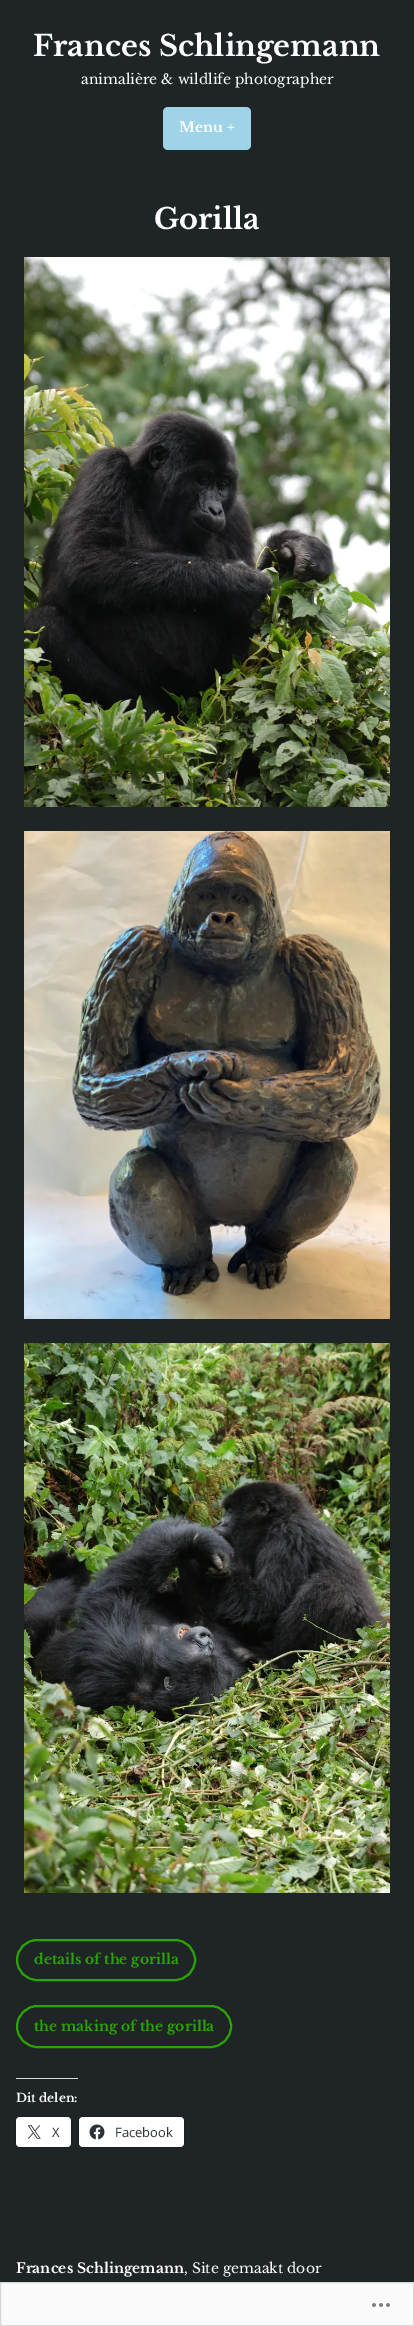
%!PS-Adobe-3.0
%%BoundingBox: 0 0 414 2326
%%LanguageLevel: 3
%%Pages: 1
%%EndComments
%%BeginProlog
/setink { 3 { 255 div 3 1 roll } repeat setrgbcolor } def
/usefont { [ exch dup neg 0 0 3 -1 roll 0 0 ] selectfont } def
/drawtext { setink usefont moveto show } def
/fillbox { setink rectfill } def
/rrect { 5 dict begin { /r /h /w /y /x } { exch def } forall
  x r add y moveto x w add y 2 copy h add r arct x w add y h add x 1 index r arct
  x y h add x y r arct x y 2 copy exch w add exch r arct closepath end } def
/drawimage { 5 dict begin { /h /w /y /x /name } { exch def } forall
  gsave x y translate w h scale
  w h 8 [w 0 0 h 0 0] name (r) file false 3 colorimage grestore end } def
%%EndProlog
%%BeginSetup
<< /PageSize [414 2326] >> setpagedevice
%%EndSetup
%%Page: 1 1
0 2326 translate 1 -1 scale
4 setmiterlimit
0 0 414 2326 31 37 39 fillbox
(Frances Schlingemann) 33 56 /LibreBaskerville-Bold 28.75 255 255 255 drawtext
(animalière & wildlife photographer) 81 84 /LibreBaskerville-Regular 13.9 255 255 255 drawtext
159 211 232 setink
163 107 88 43 5 rrect fill
(Menu +) 179 132 /LibreBaskerville-Bold 13.9 255 255 255 drawtext
(Gorilla) 154 229 /LibreBaskerville-Bold 28.75 255 255 255 drawtext
(assets/img1.rgb) 24 257 366 550 drawimage
(assets/img2.rgb) 24 831 366 488 drawimage
(assets/img3.rgb) 24 1343 366 550 drawimage
43 163 0 setink
2 setlinewidth
17 1940 178 40 20 rrect stroke
(details of the gorilla) 34 1964 /LibreBaskerville-Bold 13.9 43 163 0 drawtext
17 2006 214 41 20.5 rrect stroke
(the making of the gorilla) 34 2031 /LibreBaskerville-Bold 13.9 43 163 0 drawtext
16 2078 62 1 220 220 222 fillbox
(Dit delen:) 16 2102 /LibreBaskerville-Bold 12 255 255 255 drawtext
27 33 34 setink
1 setlinewidth
15.5 2116.5 56 31 4.5 rrect stroke
255 255 255 setink
16 2117 55 30 4 rrect fill
(assets/img4.rgb) 27 2125 14 14 drawimage
(X) 52 2137 /OpenSans-Regular 13 44 51 56 drawtext
27 33 34 setink
78.5 2116.5 106 31 4.5 rrect stroke
255 255 255 setink
79 2117 105 30 4 rrect fill
(assets/img5.rgb) 89 2124 16 16 drawimage
(Facebook) 115 2137 /OpenSans-Regular 13 44 51 56 drawtext
(Frances Schlingemann) 16 2273 /LibreBaskerville-Bold 13.9 255 255 255 drawtext
(, Site gemaakt door) 184 2273 /LibreBaskerville-Regular 13.9 255 255 255 drawtext
251 251 251 setink
0.5 2282.5 moveto 413.5 2282.5 lineto 413.5 2325.5 lineto 0.5 2325.5 lineto closepath gsave fill grestore
216 216 218 setink
stroke
(assets/img6.rgb) 372 2303 18 4 drawimage
showpage
%%EOF
